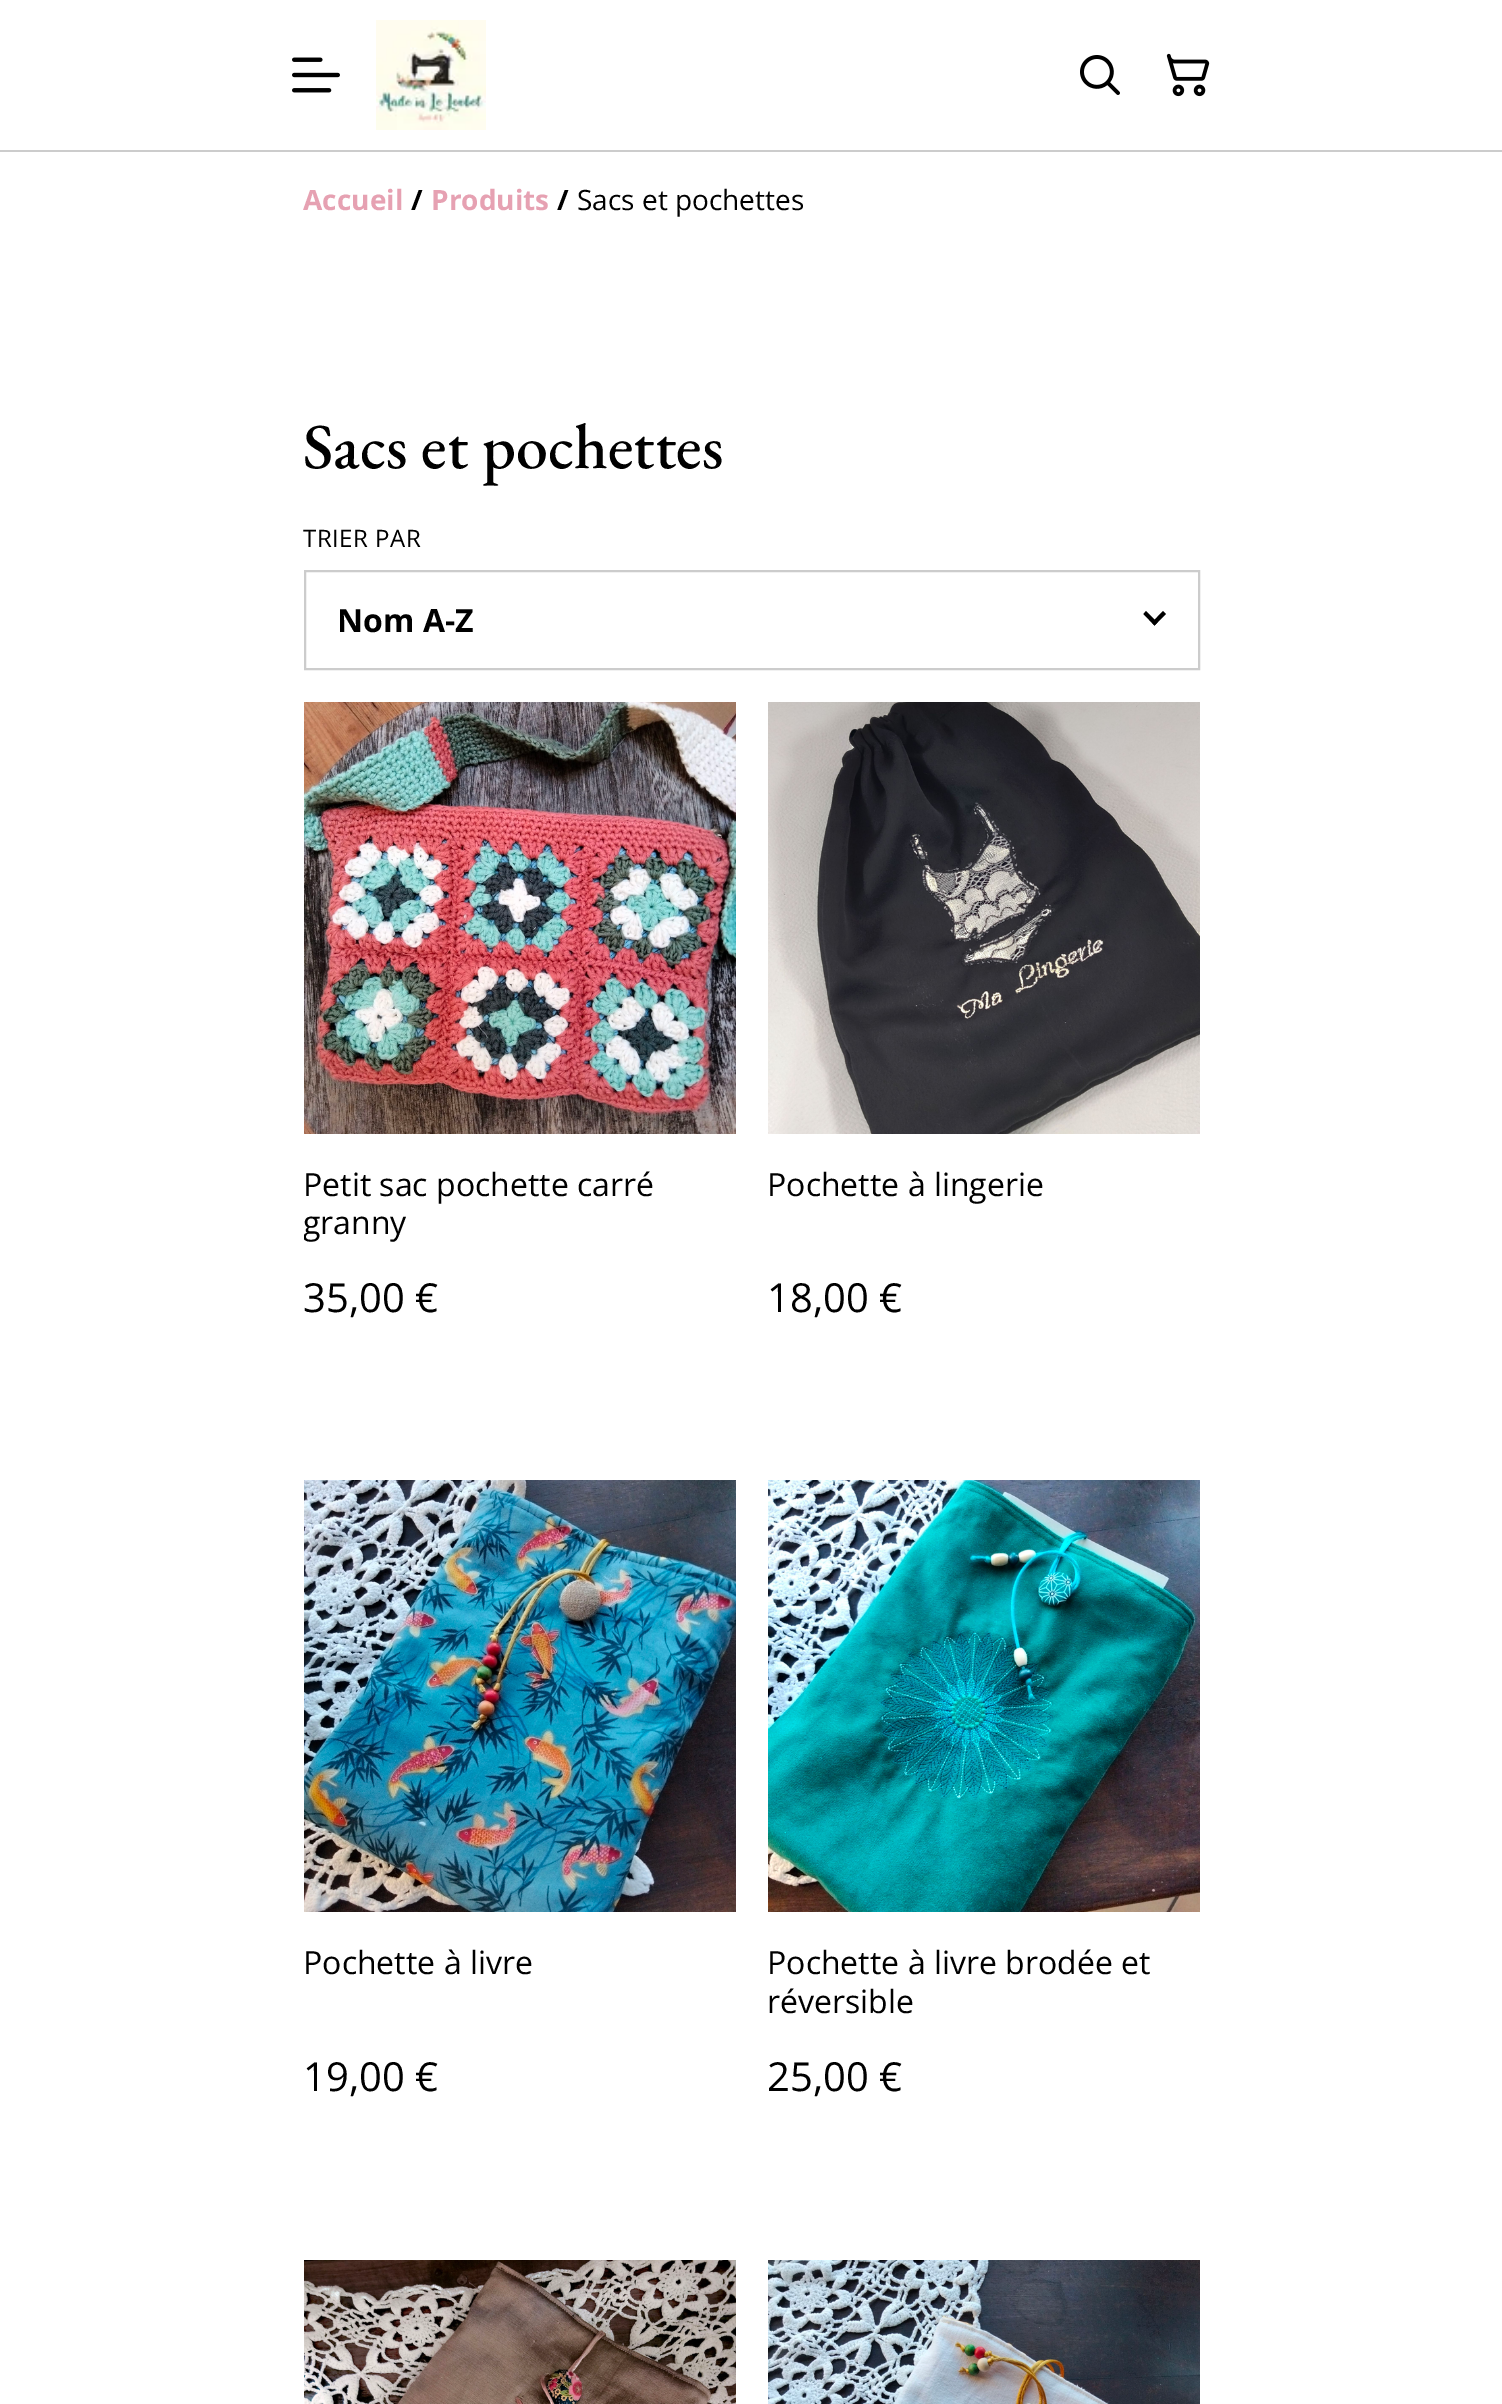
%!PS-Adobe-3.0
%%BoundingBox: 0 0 1502 2404
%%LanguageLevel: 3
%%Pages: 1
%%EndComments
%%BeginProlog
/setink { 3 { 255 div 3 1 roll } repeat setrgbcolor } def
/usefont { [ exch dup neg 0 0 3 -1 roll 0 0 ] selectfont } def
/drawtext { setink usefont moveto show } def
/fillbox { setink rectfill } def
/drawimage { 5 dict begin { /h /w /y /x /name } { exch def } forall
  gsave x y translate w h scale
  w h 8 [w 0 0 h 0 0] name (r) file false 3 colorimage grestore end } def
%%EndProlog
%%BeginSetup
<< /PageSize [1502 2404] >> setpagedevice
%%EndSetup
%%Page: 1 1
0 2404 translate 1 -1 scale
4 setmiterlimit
0 0 1502 2404 255 255 255 fillbox
0 150 1502 2 204 204 204 fillbox
(assets/img1.rgb) 292 57 48 36 drawimage
(assets/img2.rgb) 376 20 110 110 drawimage
(assets/img3.rgb) 1080 55 40 40 drawimage
(assets/img4.rgb) 1166 53 44 44 drawimage
(Accueil) 303 210 /OpenSans-Bold 28 230 161 178 drawtext
(/) 411 210 /OpenSans-Bold 28 0 0 0 drawtext
(Produits) 431 210 /OpenSans-Bold 28 230 161 178 drawtext
(/) 557 210 /OpenSans-Bold 28 0 0 0 drawtext
(Sacs et pochettes) 577 210 /OpenSans-Regular 28 0 0 0 drawtext
(Sacs et pochettes) 303 468 /EBGaramond-Medium 64 0 0 0 drawtext
/OpenSans-Regular 24 usefont
303 547 moveto 0.5 0 (TRIER PAR) ashow
204 204 204 setink
2 setlinewidth
305 571 894 98 rectstroke
(Nom A-Z) 337 632 /OpenSans-Bold 32 0 0 0 drawtext
1163 611 moveto 1166 614 lineto 1154.5 625.5 lineto 1152 622.5 lineto closepath fill
1146 611 moveto 1157.5 622.5 lineto 1154.5 625.5 lineto 1143.5 614 lineto closepath fill
(assets/img5.rgb) 304 702 432 432 drawimage
(Petit sac pochette carré) 303 1196 /OpenSans-Regular 32 0 0 0 drawtext
gsave
304 1166 432 76 rectclip
(granny) 303 1234 /OpenSans-Regular 32 0 0 0 drawtext
grestore
(35,00 €) 303 1312 /OpenSans-Regular 40 0 0 0 drawtext
(assets/img6.rgb) 768 702 432 432 drawimage
(Pochette à lingerie) 767 1196 /OpenSans-Regular 32 0 0 0 drawtext
(18,00 €) 767 1312 /OpenSans-Regular 40 0 0 0 drawtext
(assets/img7.rgb) 304 1480 432 432 drawimage
(Pochette à livre) 303 1974 /OpenSans-Regular 32 0 0 0 drawtext
(19,00 €) 303 2091 /OpenSans-Regular 40 0 0 0 drawtext
(assets/img8.rgb) 768 1480 432 432 drawimage
(Pochette à livre brodée et) 767 1974 /OpenSans-Regular 32 0 0 0 drawtext
(réversible) 767 2013 /OpenSans-Regular 32 0 0 0 drawtext
(25,00 €) 767 2091 /OpenSans-Regular 40 0 0 0 drawtext
(assets/img9.rgb) 304 2260 432 144 drawimage
(assets/img10.rgb) 768 2260 432 144 drawimage
showpage
%%EOF
